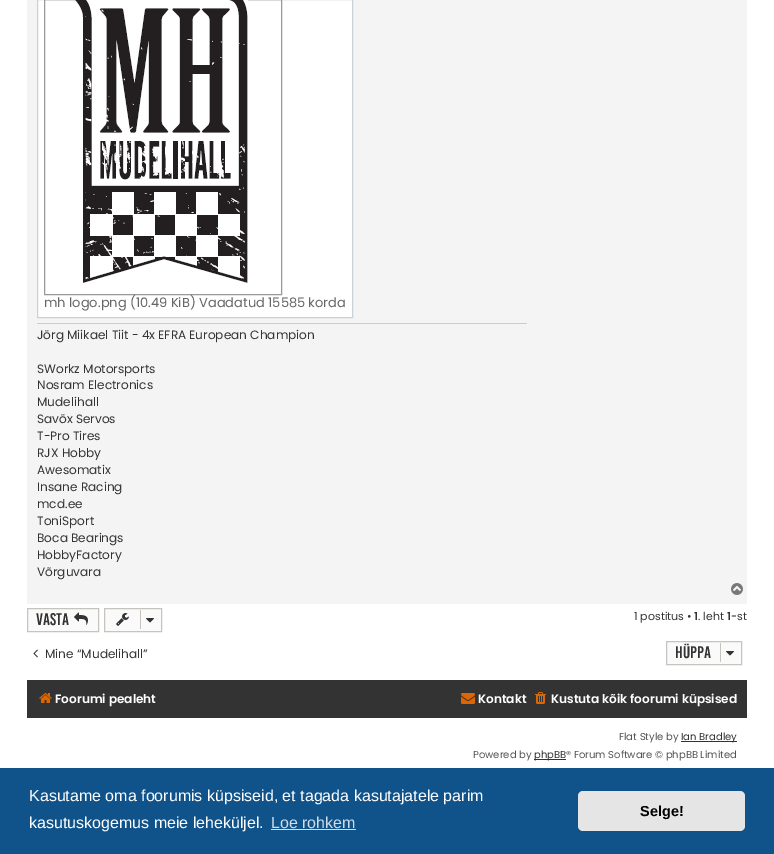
%!PS-Adobe-3.0
%%BoundingBox: 0 0 774 854
%%LanguageLevel: 3
%%Pages: 1
%%EndComments
%%BeginProlog
/setink { 3 { 255 div 3 1 roll } repeat setrgbcolor } def
/usefont { [ exch dup neg 0 0 3 -1 roll 0 0 ] selectfont } def
/drawtext { setink usefont moveto show } def
/fillbox { setink rectfill } def
/rrect { 5 dict begin { /r /h /w /y /x } { exch def } forall
  x r add y moveto x w add y 2 copy h add r arct x w add y h add x 1 index r arct
  x y h add x y r arct x y 2 copy exch w add exch r arct closepath end } def
/drawimage { 5 dict begin { /h /w /y /x /name } { exch def } forall
  gsave x y translate w h scale
  w h 8 [w 0 0 h 0 0] name (r) file false 3 colorimage grestore end } def
%%EndProlog
%%BeginSetup
<< /PageSize [774 854] >> setpagedevice
%%EndSetup
%%Page: 1 1
0 854 translate 1 -1 scale
4 setmiterlimit
0 0 774 854 255 255 255 fillbox
27 0 720 604 244 244 244 fillbox
255 255 255 setink
37.5 -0.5 moveto 352.5 -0.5 lineto 352.5 317.5 lineto 37.5 317.5 lineto closepath gsave fill grestore
201 210 216 setink
stroke
153 153 153 setink
44.5 -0.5 237 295 rectstroke
(assets/img1.rgb) 75 0 173 283 drawimage
(mh logo.png \(10.49 KiB\) Vaadatud 15585 korda) 44 307 /Poppins-Regular 13 102 102 102 drawtext
37 323 490 1 204 204 204 fillbox
(Jörg Miikael Tiit - 4x EFRA European Champion) 37 339 /Poppins-Regular 12.1 51 51 51 drawtext
(SWorkz Motorsports) 37 373 /Poppins-Regular 12.1 51 51 51 drawtext
(Nosram Electronics) 37 389 /Poppins-Regular 12.1 51 51 51 drawtext
(Mudelihall) 37 406 /Poppins-Regular 12.1 51 51 51 drawtext
(Savöx Servos) 37 423 /Poppins-Regular 12.1 51 51 51 drawtext
(T-Pro Tires) 37 440 /Poppins-Regular 12.1 51 51 51 drawtext
(RJX Hobby) 37 457 /Poppins-Regular 12.1 51 51 51 drawtext
(Awesomatix) 37 474 /Poppins-Regular 12.1 51 51 51 drawtext
(Insane Racing) 37 491 /Poppins-Regular 12.1 51 51 51 drawtext
(mcd.ee) 37 508 /Poppins-Regular 12.1 51 51 51 drawtext
(ToniSport) 37 525 /Poppins-Regular 12.1 51 51 51 drawtext
(Boca Bearings) 37 542 /Poppins-Regular 12.1 51 51 51 drawtext
(HobbyFactory) 37 559 /Poppins-Regular 12.1 51 51 51 drawtext
(Võrguvara) 37 576 /Poppins-Regular 12.1 51 51 51 drawtext
(assets/img2.rgb) 731 583 12 12 drawimage
250 250 250 setink
27.5 608.5 moveto 98.5 608.5 lineto 98.5 631.5 lineto 27.5 631.5 lineto closepath gsave fill grestore
199 195 191 setink
stroke
(Vasta) 36 625 /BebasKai-Regular 13 51 51 51 drawtext
(assets/img3.rgb) 74 612 14 13 drawimage
250 250 250 setink
104.5 608.5 moveto 161.5 608.5 lineto 161.5 631.5 lineto 104.5 631.5 lineto closepath gsave fill grestore
199 195 191 setink
stroke
(assets/img4.rgb) 116 613 13 13 drawimage
140 610 1 19 199 195 191 fillbox
(assets/img5.rgb) 146 618 8 5 drawimage
(1 postitus •) 634 620 /Poppins-Regular 11 51 51 51 drawtext
(1) 694 620 /Poppins-SemiBold 11 51 51 51 drawtext
(. leht) 698 620 /Poppins-Regular 11 51 51 51 drawtext
(1) 727 620 /Poppins-SemiBold 11 51 51 51 drawtext
(-st) 731 620 /Poppins-Regular 11 51 51 51 drawtext
(assets/img6.rgb) 33 649 5 9 drawimage
(Mine “Mudelihall”) 45 658 /Poppins-Regular 12.1 51 51 51 drawtext
250 250 250 setink
666.5 641.5 moveto 741.5 641.5 lineto 741.5 664.5 lineto 666.5 664.5 lineto closepath gsave fill grestore
199 195 191 setink
stroke
(Hüppa) 675 658 /BebasKai-Regular 13 51 51 51 drawtext
720 643 1 19 199 195 191 fillbox
(assets/img5.rgb) 726 651 8 5 drawimage
27 680 720 38 51 51 51 fillbox
(assets/img7.rgb) 39 693 13 10 drawimage
(Foorumi pealeht) 55 703 /Poppins-SemiBold 12.1 255 255 255 drawtext
(assets/img8.rgb) 461 693 14 11 drawimage
(Kontakt) 478 703 /Poppins-SemiBold 12.1 255 255 255 drawtext
(assets/img9.rgb) 535 692 11 12 drawimage
(Kustuta kõik foorumi küpsised) 551 703 /Poppins-SemiBold 12.1 255 255 255 drawtext
(Flat Style by) 619 740 /Poppins-Regular 10 85 85 85 drawtext
681 741 56 1 51 51 51 fillbox
(Ian Bradley) 681 740 /Poppins-Regular 10 51 51 51 drawtext
(Powered by) 473 758 /Poppins-Regular 10 85 85 85 drawtext
534 759 32 1 51 51 51 fillbox
(phpBB) 534 758 /Poppins-Regular 10 51 51 51 drawtext
(® Forum Software © phpBB Limited) 566 758 /Poppins-Regular 10 85 85 85 drawtext
0 768 774 86 15 83 138 fillbox
(Kasutame oma foorumis küpsiseid, et tagada kasutajatele parim) 29 801 /LiberationSans-Regular 16 255 255 255 drawtext
(kasutuskogemus meie leheküljel.) 29 828 /LiberationSans-Regular 16 255 255 255 drawtext
(Loe rohkem) 271 828 /LiberationSans-Regular 16 207 221 232 drawtext
271 829 85 1 207 221 232 fillbox
229 229 229 setink
578 791 167 40 5 rrect fill
(Selge!) 640 816 /LiberationSans-Bold 14.5 0 0 0 drawtext
showpage
%%EOF
